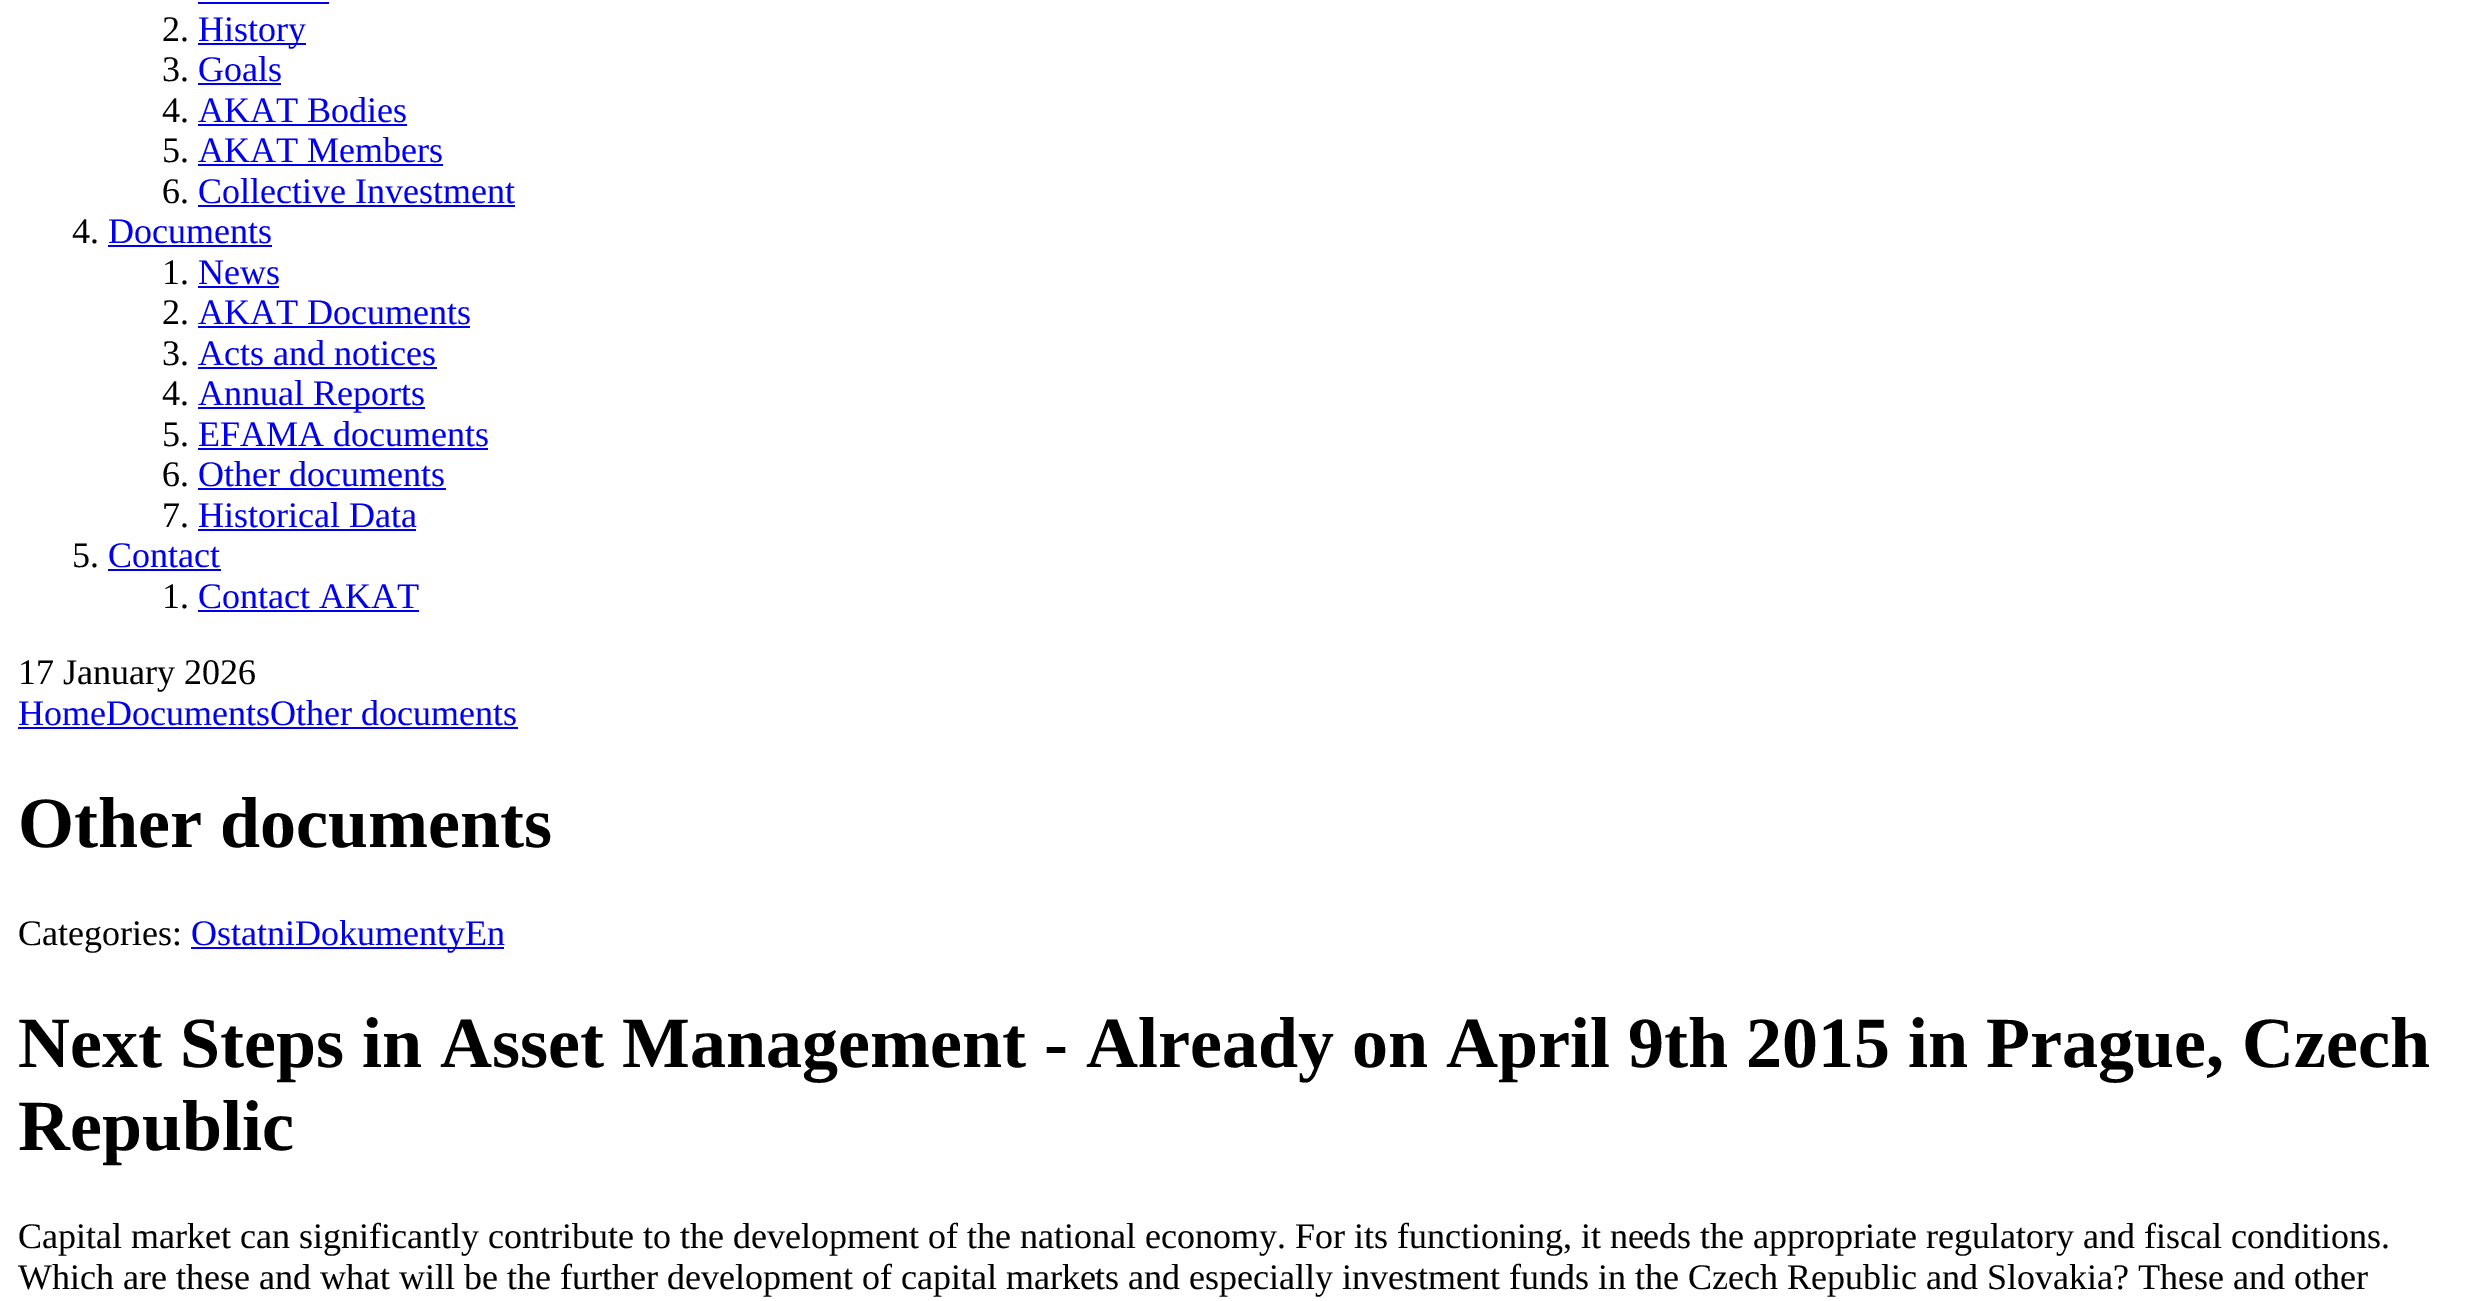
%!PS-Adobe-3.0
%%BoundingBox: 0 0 2474 1301
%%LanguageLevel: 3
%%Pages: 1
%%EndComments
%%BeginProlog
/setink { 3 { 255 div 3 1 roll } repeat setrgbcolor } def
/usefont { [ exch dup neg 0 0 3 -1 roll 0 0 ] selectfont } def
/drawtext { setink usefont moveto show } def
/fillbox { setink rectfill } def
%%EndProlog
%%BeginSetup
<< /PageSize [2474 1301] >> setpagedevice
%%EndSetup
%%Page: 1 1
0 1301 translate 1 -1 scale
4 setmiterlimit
0 0 2474 1301 255 255 255 fillbox
198 2 131 2 0 0 238 fillbox
(2.) 162 41 /LiberationSerif-Regular 36 0 0 0 drawtext
198 43 108 2 0 0 238 fillbox
(History) 198 41 /LiberationSerif-Regular 36 0 0 238 drawtext
(3.) 162 81 /LiberationSerif-Regular 36 0 0 0 drawtext
(Goals) 198 81 /LiberationSerif-Regular 36 0 0 238 drawtext
198 83 83 2 0 0 238 fillbox
(4.) 162 122 /LiberationSerif-Regular 36 0 0 0 drawtext
(AKAT Bodies) 198 122 /LiberationSerif-Regular 36 0 0 238 drawtext
198 124 209 2 0 0 238 fillbox
(5.) 162 162 /LiberationSerif-Regular 36 0 0 0 drawtext
(AKAT Members) 198 162 /LiberationSerif-Regular 36 0 0 238 drawtext
198 164 245 2 0 0 238 fillbox
(6.) 162 203 /LiberationSerif-Regular 36 0 0 0 drawtext
(Collective Investment) 198 203 /LiberationSerif-Regular 36 0 0 238 drawtext
198 205 317 2 0 0 238 fillbox
(4.) 72 243 /LiberationSerif-Regular 36 0 0 0 drawtext
(Documents) 108 243 /LiberationSerif-Regular 36 0 0 238 drawtext
108 245 164 2 0 0 238 fillbox
(1.) 162 284 /LiberationSerif-Regular 36 0 0 0 drawtext
(News) 198 284 /LiberationSerif-Regular 36 0 0 238 drawtext
198 286 81 2 0 0 238 fillbox
(2.) 162 324 /LiberationSerif-Regular 36 0 0 0 drawtext
(AKAT Documents) 198 324 /LiberationSerif-Regular 36 0 0 238 drawtext
198 326 272 2 0 0 238 fillbox
(3.) 162 365 /LiberationSerif-Regular 36 0 0 0 drawtext
(Acts and notices) 198 365 /LiberationSerif-Regular 36 0 0 238 drawtext
198 367 239 2 0 0 238 fillbox
(4.) 162 405 /LiberationSerif-Regular 36 0 0 0 drawtext
198 407 227 2 0 0 238 fillbox
(Annual Reports) 198 405 /LiberationSerif-Regular 36 0 0 238 drawtext
(5.) 162 446 /LiberationSerif-Regular 36 0 0 0 drawtext
(EFAMA documents) 198 446 /LiberationSerif-Regular 36 0 0 238 drawtext
198 448 290 2 0 0 238 fillbox
(6.) 162 486 /LiberationSerif-Regular 36 0 0 0 drawtext
(Other documents) 198 486 /LiberationSerif-Regular 36 0 0 238 drawtext
198 488 248 2 0 0 238 fillbox
(7.) 162 527 /LiberationSerif-Regular 36 0 0 0 drawtext
(Historical Data) 198 527 /LiberationSerif-Regular 36 0 0 238 drawtext
198 529 218 2 0 0 238 fillbox
(5.) 72 567 /LiberationSerif-Regular 36 0 0 0 drawtext
(Contact) 108 567 /LiberationSerif-Regular 36 0 0 238 drawtext
108 569 113 2 0 0 238 fillbox
(1.) 162 608 /LiberationSerif-Regular 36 0 0 0 drawtext
(Contact AKAT) 198 608 /LiberationSerif-Regular 36 0 0 238 drawtext
198 610 221 2 0 0 238 fillbox
(17 January 2026) 18 684 /LiberationSerif-Regular 36 0 0 0 drawtext
(HomeDocumentsOther documents) 18 725 /LiberationSerif-Regular 36 0 0 238 drawtext
18 727 500 2 0 0 238 fillbox
(Other documents) 18 847 /LiberationSerif-Bold 72 0 0 0 drawtext
(Categories:) 18 945 /LiberationSerif-Regular 36 0 0 0 drawtext
191 947 313 2 0 0 238 fillbox
(OstatniDokumentyEn) 191 945 /LiberationSerif-Regular 36 0 0 238 drawtext
(Next Steps in Asset Management - Already on April 9th 2015 in Prague, Czech) 18 1067 /LiberationSerif-Bold 72 0 0 0 drawtext
(Republic) 18 1150 /LiberationSerif-Bold 72 0 0 0 drawtext
(Capital market can significantly contribute to the development of the national economy. For its functioning, it needs the appropriate regulatory and fiscal conditions.) 18 1248 /LiberationSerif-Regular 36 0 0 0 drawtext
(Which are these and what will be the further development of capital markets and especially investment funds in the Czech Republic and Slovakia? These and other) 18 1289 /LiberationSerif-Regular 36 0 0 0 drawtext
showpage
%%EOF
